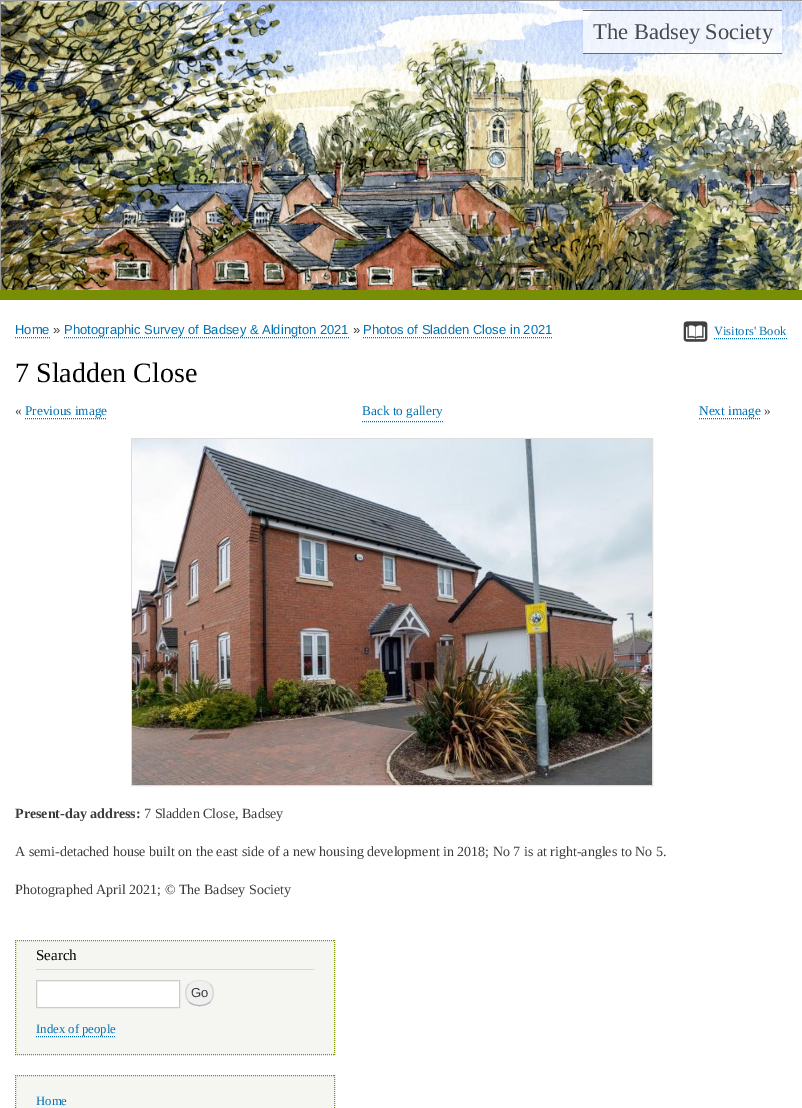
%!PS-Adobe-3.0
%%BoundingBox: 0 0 802 1108
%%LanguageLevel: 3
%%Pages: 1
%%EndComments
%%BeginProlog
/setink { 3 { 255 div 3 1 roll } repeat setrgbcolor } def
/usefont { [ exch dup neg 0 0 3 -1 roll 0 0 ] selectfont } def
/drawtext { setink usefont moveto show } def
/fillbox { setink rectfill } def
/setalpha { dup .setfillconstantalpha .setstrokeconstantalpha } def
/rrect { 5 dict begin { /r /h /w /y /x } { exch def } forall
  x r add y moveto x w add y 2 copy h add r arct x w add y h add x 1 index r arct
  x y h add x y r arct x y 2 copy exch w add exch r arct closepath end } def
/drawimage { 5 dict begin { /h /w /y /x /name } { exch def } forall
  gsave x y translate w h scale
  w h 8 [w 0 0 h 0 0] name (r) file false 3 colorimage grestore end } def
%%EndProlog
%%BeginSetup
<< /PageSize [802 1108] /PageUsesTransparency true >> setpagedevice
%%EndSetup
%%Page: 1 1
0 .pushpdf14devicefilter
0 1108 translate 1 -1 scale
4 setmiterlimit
0 0 802 1108 255 255 255 fillbox
0 290 802 10 120 142 5 fillbox
gsave
0 0 802 290 rectclip
153 153 153 setink
0.5 0.5 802 323 rectstroke
grestore
(assets/img1.rgb) 1 1 801 289 drawimage
0.7 setalpha
583 11 199 42 255 255 255 fillbox
583 10 199 1 55 56 63 fillbox
583 53 199 1 55 56 63 fillbox
1 setalpha
(The Badsey Society) 593 39 /LiberationSerif-Regular 22.5 72 73 76 drawtext
(Home) 15 334 /LiberationSans-Regular 13 0 112 179 drawtext
[1 1] 0 setdash
15 337.5 moveto 50 337.5 lineto stroke
(») 53 334 /LiberationSans-Regular 13 59 59 59 drawtext
(Photographic Survey of Badsey & Aldington 2021) 64 334 /LiberationSans-Regular 13 0 112 179 drawtext
64 337.5 moveto 349 337.5 lineto stroke
(») 353 334 /LiberationSans-Regular 13 59 59 59 drawtext
0 112 179 setink
363 337.5 moveto 553 337.5 lineto stroke
(Photos of Sladden Close in 2021) 363 334 /LiberationSans-Regular 13 0 112 179 drawtext
(assets/img2.rgb) 683 321 25 21 drawimage
(Visitors' Book) 714 335 /LiberationSerif-Regular 12.5 0 112 179 drawtext
714 338.5 moveto 787 338.5 lineto stroke
(7 Sladden Close) 15 382 /LiberationSerif-Regular 28 0 0 0 drawtext
(«) 15 415 /LiberationSerif-Regular 13.25 59 59 59 drawtext
(Previous image) 25 415 /LiberationSerif-Regular 13.25 0 112 179 drawtext
25 418.5 moveto 107 418.5 lineto stroke
362 421.5 moveto 444 421.5 lineto stroke
(Back to gallery) 362 415 /LiberationSerif-Regular 13.25 0 112 179 drawtext
(Next image) 699 415 /LiberationSerif-Regular 13.25 0 112 179 drawtext
699 418.5 moveto 760 418.5 lineto stroke
(») 764 415 /LiberationSerif-Regular 13.25 59 59 59 drawtext
221 221 221 setink
[] 0 setdash
131.5 438.5 521 347 rectstroke
(assets/img3.rgb) 132 439 520 346 drawimage
(Present-day address:) 15 818 /LiberationSerif-Bold 14 59 59 59 drawtext
(7 Sladden Close, Badsey) 144 818 /LiberationSerif-Regular 14 59 59 59 drawtext
(A semi-detached house built on the east side of a new housing development in 2018; No 7 is at right-angles to No 5.) 15 856 /LiberationSerif-Regular 14 59 59 59 drawtext
(Photographed April 2021; © The Badsey Society) 15 894 /LiberationSerif-Regular 14 59 59 59 drawtext
15 940 320 115 245 245 242 fillbox
120 142 5 setink
[1 1] 0 setdash
15 940.5 moveto 335 940.5 lineto stroke
334.5 940 moveto 334.5 1055 lineto stroke
15 1054.5 moveto 335 1054.5 lineto stroke
15.5 940 moveto 15.5 1055 lineto stroke
36 969 278 1 214 214 214 fillbox
(Search) 36 960 /LiberationSerif-Regular 15 0 0 0 drawtext
255 255 255 setink
36.5 980.5 moveto 179.5 980.5 lineto 179.5 1007.5 lineto 36.5 1007.5 lineto closepath gsave fill grestore
204 204 204 setink
[] 0 setdash
stroke
240 240 240 setink
185 980 29 26 13 rrect fill
228 228 228 setink
189 984 moveto 194.5 979 204.5 979 210 984 curveto stroke
210 210 210 setink
210 984 moveto 214.5 989 214.5 997 210 1002 curveto stroke
180 180 180 setink
210 1002 moveto 204.5 1007 194.5 1007 189 1002 curveto stroke
210 210 210 setink
189 1002 moveto 184.5 997 184.5 989 189 984 curveto stroke
(Go) 191 997 /LiberationSans-Regular 13 59 59 59 drawtext
(Index of people) 36 1033 /LiberationSerif-Regular 12.75 0 112 179 drawtext
[1 1] 0 setdash
36 1036.5 moveto 116 1036.5 lineto stroke
15 1075 320 33 245 245 242 fillbox
120 142 5 setink
15 1075.5 moveto 335 1075.5 lineto stroke
334.5 1075 moveto 334.5 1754 lineto stroke
15.5 1075 moveto 15.5 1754 lineto stroke
(Home) 36 1105 /LiberationSerif-Regular 12.75 0 112 179 drawtext
.poppdf14devicefilter showpage
%%EOF
